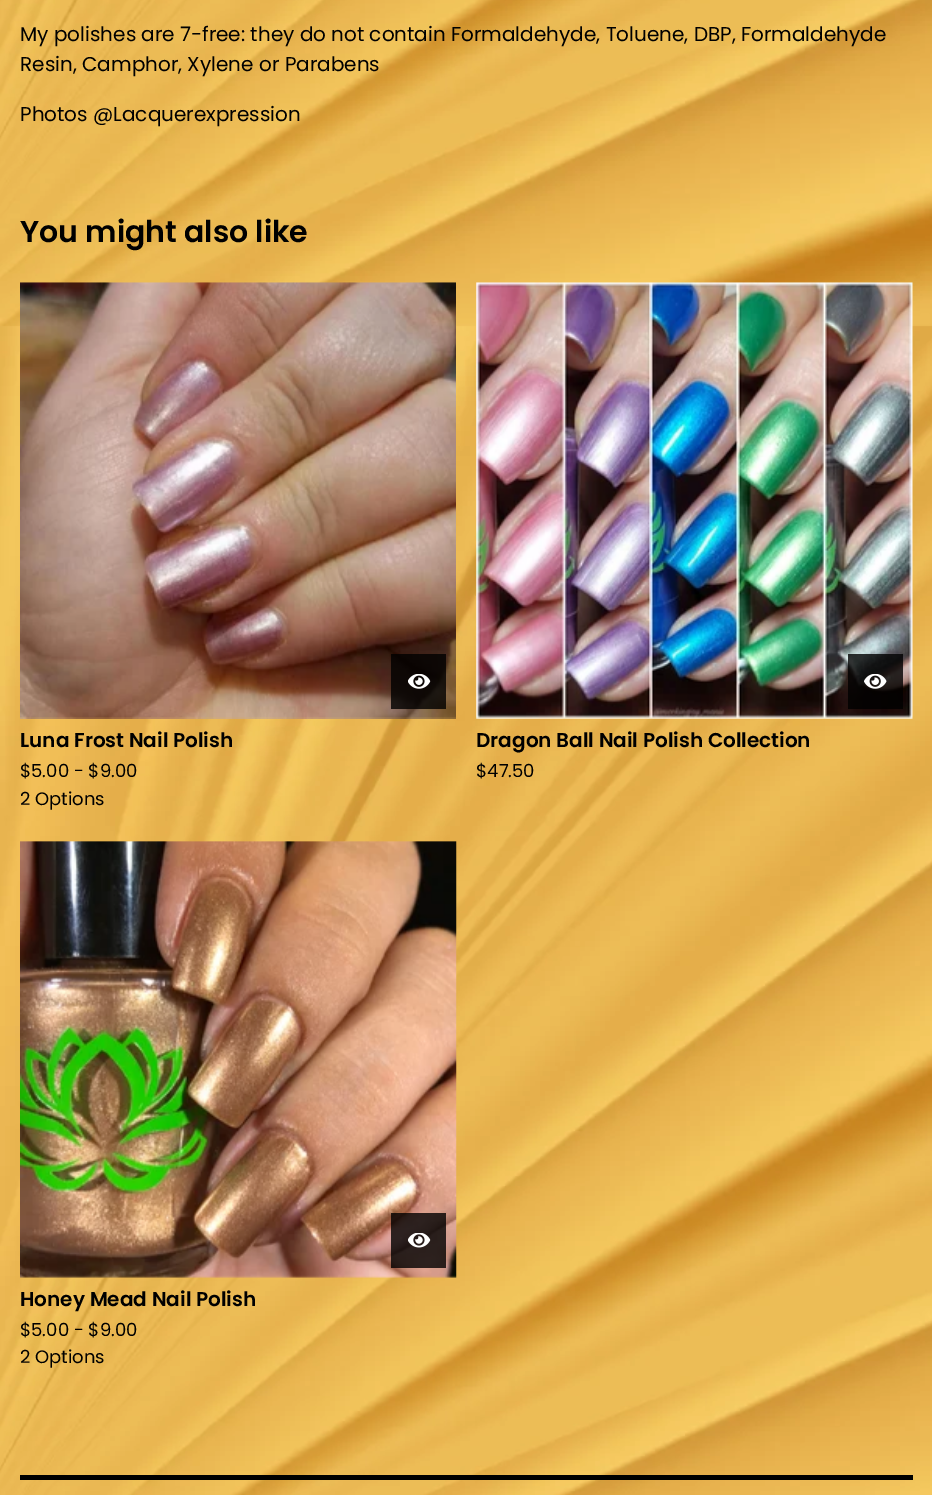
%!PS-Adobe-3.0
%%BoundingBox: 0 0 932 1495
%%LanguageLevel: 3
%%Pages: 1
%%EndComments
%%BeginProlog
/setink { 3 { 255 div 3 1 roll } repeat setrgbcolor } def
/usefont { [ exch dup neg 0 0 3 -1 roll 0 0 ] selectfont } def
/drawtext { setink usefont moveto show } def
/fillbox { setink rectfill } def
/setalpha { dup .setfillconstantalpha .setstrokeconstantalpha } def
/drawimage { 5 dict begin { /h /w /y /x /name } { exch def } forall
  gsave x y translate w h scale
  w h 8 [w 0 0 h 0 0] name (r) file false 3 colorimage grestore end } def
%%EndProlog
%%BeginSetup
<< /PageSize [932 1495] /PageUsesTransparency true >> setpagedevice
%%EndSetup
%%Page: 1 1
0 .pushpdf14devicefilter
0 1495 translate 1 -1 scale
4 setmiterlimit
0 0 932 1495 255 255 255 fillbox
(assets/img1.rgb) 0 0 932 1495 drawimage
(My polishes are 7-free: they do not contain Formaldehyde, Toluene, DBP, Formaldehyde) 20 41 /Poppins-Regular 20 0 0 0 drawtext
(Resin, Camphor, Xylene or Parabens) 20 71 /Poppins-Regular 20 0 0 0 drawtext
(Photos @Lacquerexpression) 20 121 /Poppins-Regular 20 0 0 0 drawtext
(You might also like) 20 242 /Poppins-SemiBold 30 0 0 0 drawtext
(assets/img2.rgb) 20 282 436 437 drawimage
0.8 setalpha
391 654 55 55 0 0 0 fillbox
1 setalpha
(assets/img3.rgb) 408 674 23 15 drawimage
(Luna Frost Nail Polish) 20 747 /Poppins-SemiBold 20 0 0 0 drawtext
($5.00 - $9.00) 20 777 /Poppins-Regular 18 0 0 0 drawtext
(2 Options) 20 805 /Poppins-Regular 18 0 0 0 drawtext
(assets/img4.rgb) 476 282 437 437 drawimage
0.8 setalpha
848 654 55 55 0 0 0 fillbox
1 setalpha
(assets/img5.rgb) 864 674 23 15 drawimage
(Dragon Ball Nail Polish Collection) 476 747 /Poppins-SemiBold 20 0 0 0 drawtext
($47.50) 476 777 /Poppins-Regular 18 0 0 0 drawtext
(assets/img6.rgb) 20 841 437 437 drawimage
0.8 setalpha
391 1213 55 55 0 0 0 fillbox
1 setalpha
(assets/img7.rgb) 408 1233 23 15 drawimage
(Honey Mead Nail Polish) 20 1306 /Poppins-SemiBold 20 0 0 0 drawtext
($5.00 - $9.00) 20 1336 /Poppins-Regular 18 0 0 0 drawtext
(2 Options) 20 1363 /Poppins-Regular 18 0 0 0 drawtext
20 1475 893 5 0 0 0 fillbox
.poppdf14devicefilter showpage
%%EOF
